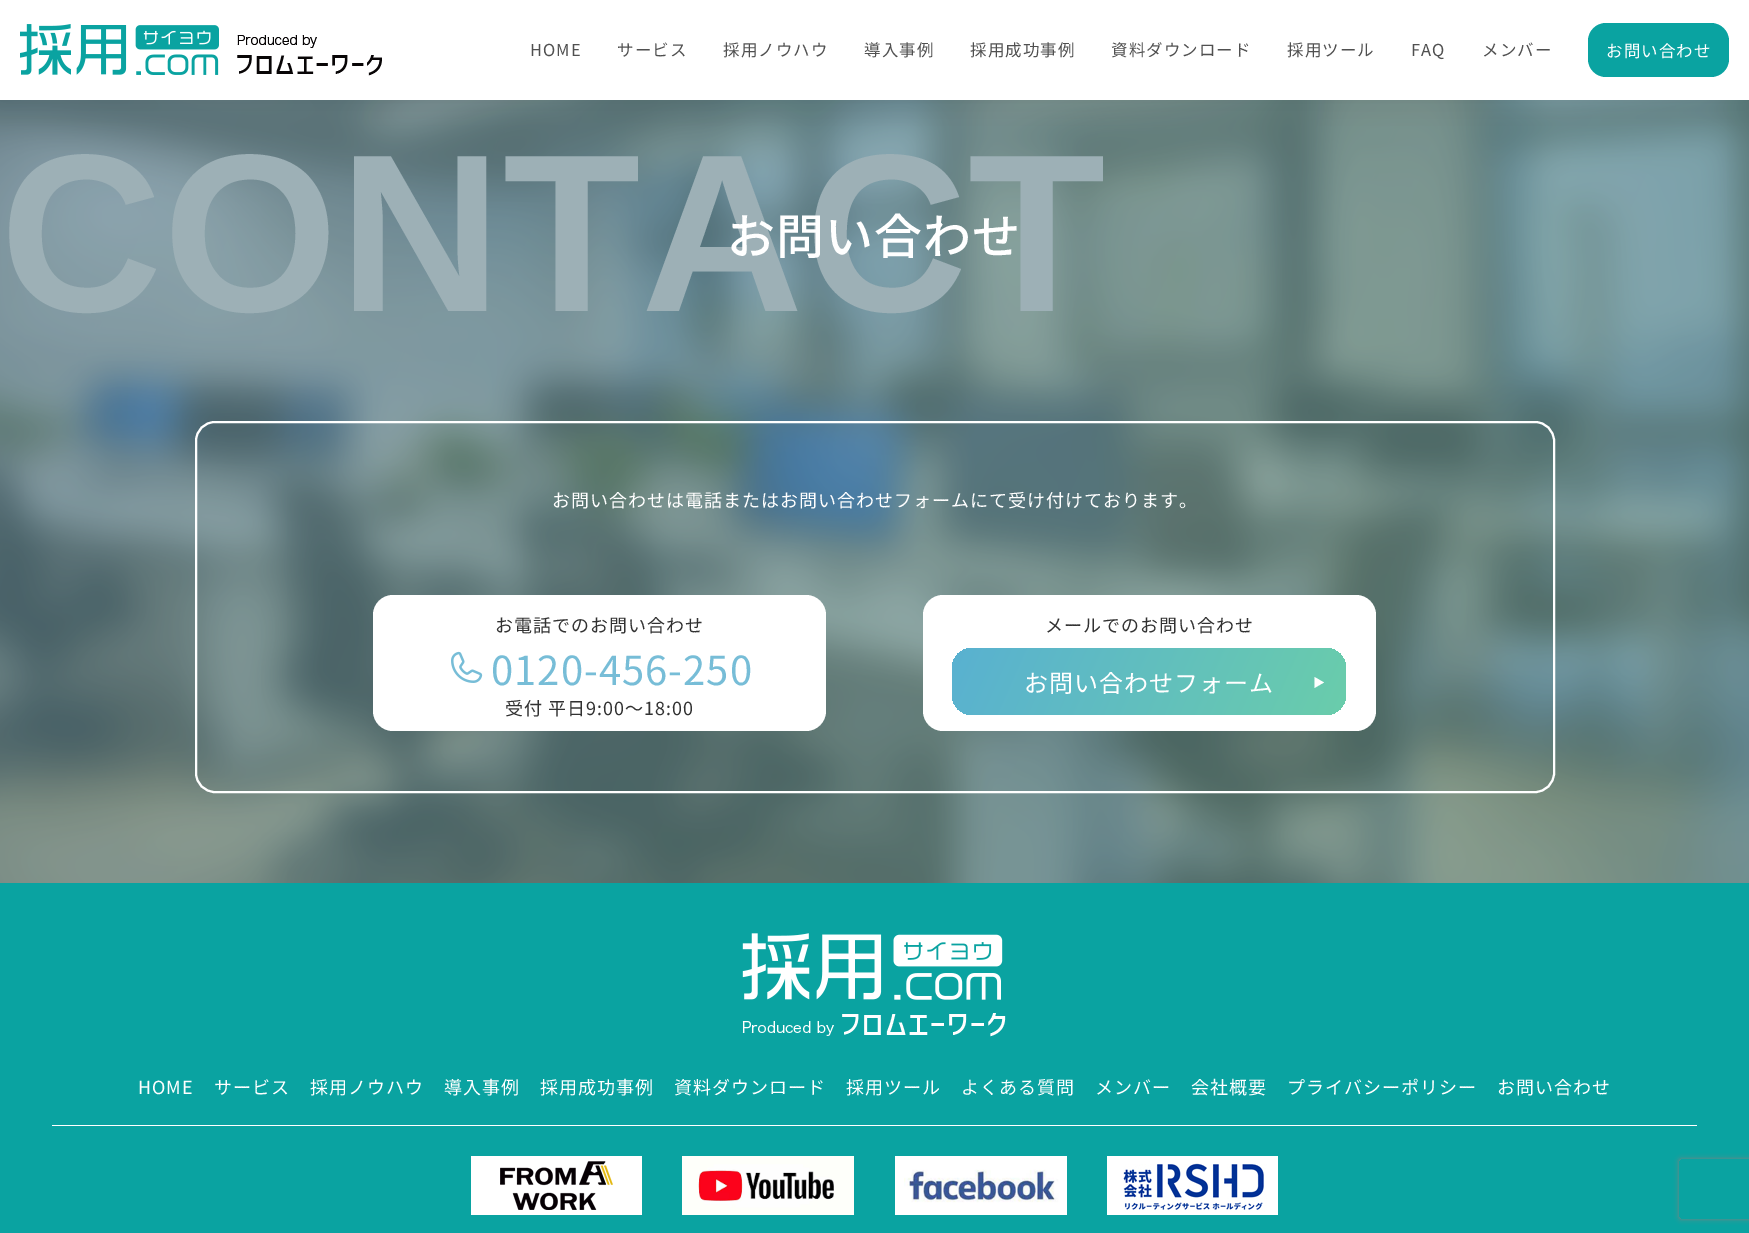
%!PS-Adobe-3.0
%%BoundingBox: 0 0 1749 1233
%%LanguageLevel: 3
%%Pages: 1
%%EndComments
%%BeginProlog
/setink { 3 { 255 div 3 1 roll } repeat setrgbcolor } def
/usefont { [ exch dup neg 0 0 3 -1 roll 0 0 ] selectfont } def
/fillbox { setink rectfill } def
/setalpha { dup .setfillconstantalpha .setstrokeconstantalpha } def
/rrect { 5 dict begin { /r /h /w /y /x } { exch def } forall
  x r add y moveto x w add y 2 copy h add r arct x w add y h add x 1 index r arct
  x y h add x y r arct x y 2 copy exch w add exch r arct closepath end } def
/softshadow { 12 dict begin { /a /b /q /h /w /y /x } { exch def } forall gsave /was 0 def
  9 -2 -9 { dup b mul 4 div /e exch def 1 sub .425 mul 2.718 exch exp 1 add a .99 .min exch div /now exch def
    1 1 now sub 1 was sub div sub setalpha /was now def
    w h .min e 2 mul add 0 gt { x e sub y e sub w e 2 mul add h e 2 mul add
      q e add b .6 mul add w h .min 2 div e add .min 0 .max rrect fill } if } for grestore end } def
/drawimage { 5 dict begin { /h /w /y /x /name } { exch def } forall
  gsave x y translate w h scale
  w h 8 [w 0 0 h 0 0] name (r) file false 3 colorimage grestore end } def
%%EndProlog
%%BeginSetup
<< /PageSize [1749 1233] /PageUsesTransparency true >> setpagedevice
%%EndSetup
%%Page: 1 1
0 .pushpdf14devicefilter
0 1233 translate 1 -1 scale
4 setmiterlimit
0 0 1749 1233 255 255 255 fillbox
(assets/img2.rgb) 0 100 1749 783 drawimage
0 0 0 setink
0 0 1749 100 0 15 0.05 softshadow
0 0 1749 100 255 255 255 fillbox
(assets/img1.rgb) 20 24 362 52 drawimage
/NotoSansJP-Regular 16.5 usefont
80 80 80 setink
530 56 moveto 1 0 (HOME) ashow
617 56 moveto 1 0 (サービス) ashow
723 56 moveto 1 0 (採用ノウハウ) ashow
864 56 moveto 1 0 (導入事例) ashow
970 56 moveto 1 0 (採用成功事例) ashow
1111 56 moveto 1 0 (資料ダウンロード) ashow
1287 56 moveto 1 0 (採用ツール) ashow
1411 56 moveto 1 0 (FAQ) ashow
1482 56 moveto 1 0 (メンバー) ashow
10 163 161 setink
1588 23 141 54 18 rrect fill
255 255 255 setink
1606 57 moveto 1 0 (お問い合わせ) ashow
/LiberationSans-Bold 225 usefont
157 176 182 setink
0 311 moveto 1 0 (CONTACT) ashow
/NotoSansJP-Medium 48 usefont
255 255 255 setink
727 254 moveto 1 0 (お問い合わせ) ashow
2 setlinewidth
196 422 1358 370 19 rrect stroke
/NotoSansJP-Regular 18 usefont
552 507 moveto 1 0 (お問い合わせは電話またはお問い合わせフォームにて受け付けております。) ashow
373 595 453 136 20 rrect fill
50 50 50 setink
495 632 moveto 1 0 (お電話でのお問い合わせ) ashow
(assets/img3.rgb) 451 651 32 32 drawimage
/NotoSansJP-Regular 40 usefont
119 189 215 setink
491 685 moveto 1 0 (0120-456-250) ashow
/NotoSansJP-Regular 18 usefont
50 50 50 setink
505 715 moveto 1 0 (受付 平日9:00～18:00) ashow
255 255 255 setink
923 595 453 136 20 rrect fill
50 50 50 setink
1045 632 moveto 1 0 (メールでのお問い合わせ) ashow
gsave 952 648 394 67 20 rrect clip newpath
<< /ShadingType 2 /ColorSpace /DeviceRGB /Coords [1326 760 972 603] /Extend [true true] /Function << /FunctionType 2 /Domain [0 1] /C0 [0.416 0.804 0.671] /C1 [0.349 0.694 0.82] /N 1 >> >> shfill grestore
/NotoSansJP-Regular 24 usefont
255 255 255 setink
1024 692 moveto 1 0 (お問い合わせフォーム) ashow
/NotoSansJP-Regular 12 usefont
1313 687 moveto 1 0 (▶) ashow
0 883 1749 350 10 163 161 fillbox
52 1125 1645 1 255 255 255 fillbox
(assets/img4.rgb) 742 933 264 104 drawimage
/NotoSansJP-Regular 18 usefont
138 1094 moveto 1 0 (HOME) ashow
214 1094 moveto 1 0 (サービス) ashow
310 1094 moveto 1 0 (採用ノウハウ) ashow
444 1094 moveto 1 0 (導入事例) ashow
540 1094 moveto 1 0 (採用成功事例) ashow
674 1094 moveto 1 0 (資料ダウンロード) ashow
846 1094 moveto 1 0 (採用ツール) ashow
961 1094 moveto 1 0 (よくある質問) ashow
1095 1094 moveto 1 0 (メンバー) ashow
1191 1094 moveto 1 0 (会社概要) ashow
1287 1094 moveto 1 0 (プライバシーポリシー) ashow
1497 1094 moveto 1 0 (お問い合わせ) ashow
(assets/img5.rgb) 471 1156 171 59 drawimage
(assets/img6.rgb) 682 1156 172 59 drawimage
(assets/img7.rgb) 895 1156 172 59 drawimage
(assets/img8.rgb) 1107 1156 171 59 drawimage
gsave
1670 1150 moveto 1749 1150 lineto 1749 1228 lineto 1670 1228 lineto closepath 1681 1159 moveto 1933 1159 lineto 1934 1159 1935 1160 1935 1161 curveto 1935 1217 lineto 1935 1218 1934 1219 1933 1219 curveto 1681 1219 lineto 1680 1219 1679 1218 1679 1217 curveto 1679 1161 lineto 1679 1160 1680 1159 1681 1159 curveto closepath eoclip newpath
128 128 128 setink
1679 1159 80 60 2 2.5 1 softshadow
grestore
.poppdf14devicefilter showpage
%%EOF
